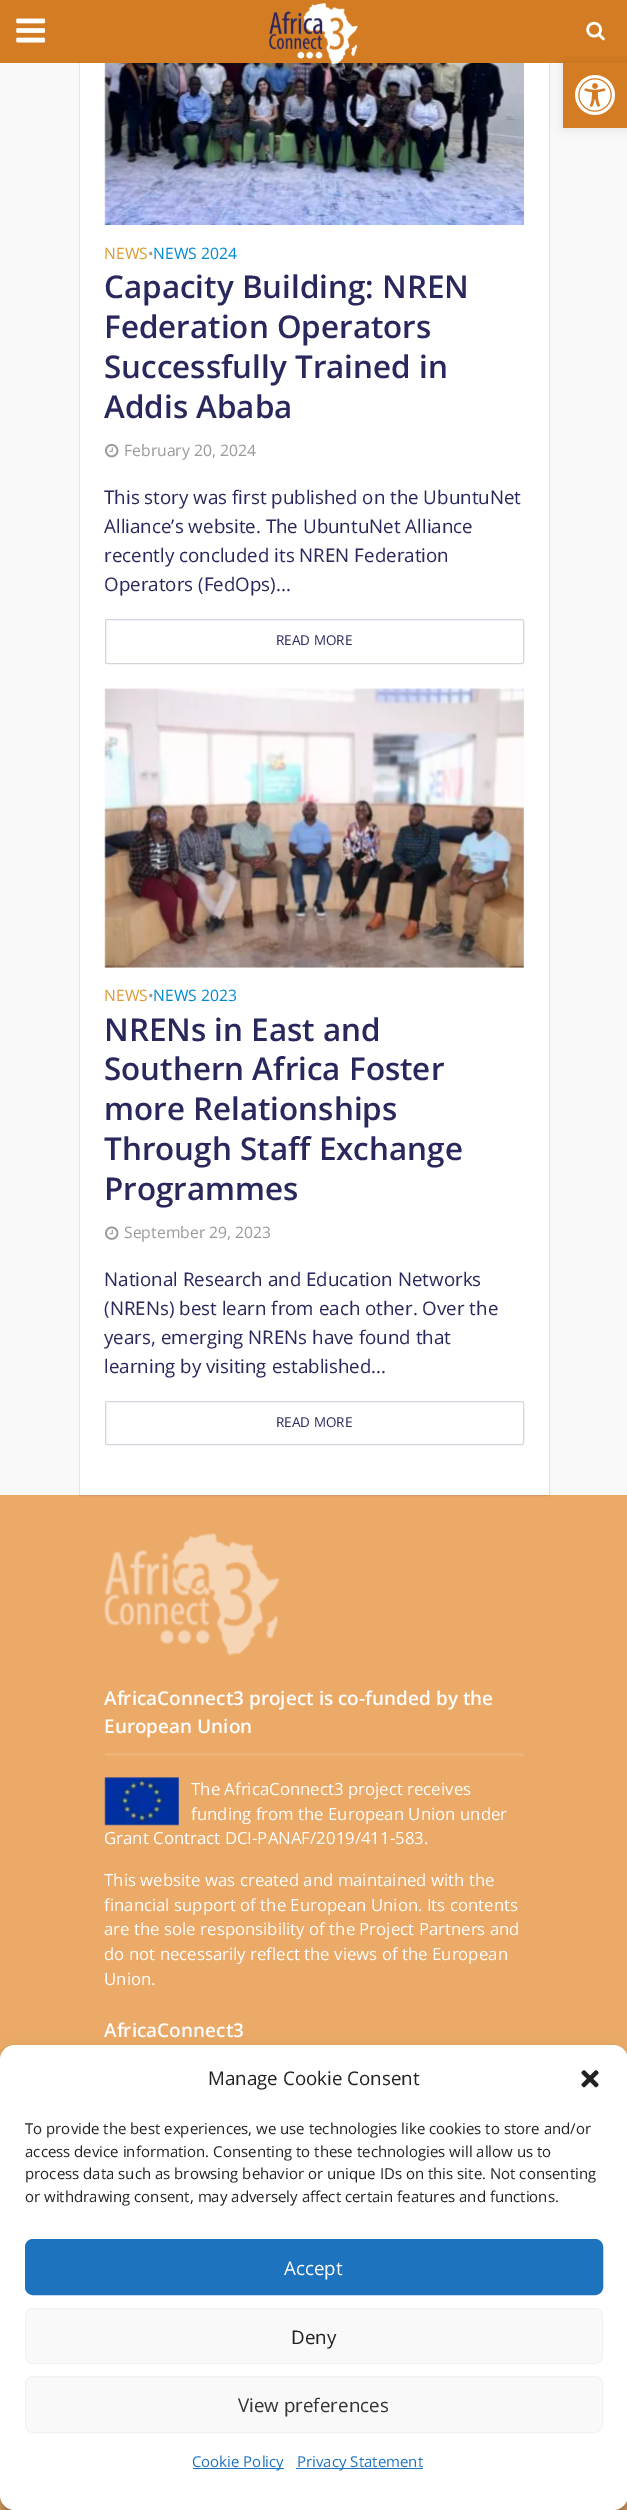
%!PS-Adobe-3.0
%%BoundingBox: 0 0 627 2510
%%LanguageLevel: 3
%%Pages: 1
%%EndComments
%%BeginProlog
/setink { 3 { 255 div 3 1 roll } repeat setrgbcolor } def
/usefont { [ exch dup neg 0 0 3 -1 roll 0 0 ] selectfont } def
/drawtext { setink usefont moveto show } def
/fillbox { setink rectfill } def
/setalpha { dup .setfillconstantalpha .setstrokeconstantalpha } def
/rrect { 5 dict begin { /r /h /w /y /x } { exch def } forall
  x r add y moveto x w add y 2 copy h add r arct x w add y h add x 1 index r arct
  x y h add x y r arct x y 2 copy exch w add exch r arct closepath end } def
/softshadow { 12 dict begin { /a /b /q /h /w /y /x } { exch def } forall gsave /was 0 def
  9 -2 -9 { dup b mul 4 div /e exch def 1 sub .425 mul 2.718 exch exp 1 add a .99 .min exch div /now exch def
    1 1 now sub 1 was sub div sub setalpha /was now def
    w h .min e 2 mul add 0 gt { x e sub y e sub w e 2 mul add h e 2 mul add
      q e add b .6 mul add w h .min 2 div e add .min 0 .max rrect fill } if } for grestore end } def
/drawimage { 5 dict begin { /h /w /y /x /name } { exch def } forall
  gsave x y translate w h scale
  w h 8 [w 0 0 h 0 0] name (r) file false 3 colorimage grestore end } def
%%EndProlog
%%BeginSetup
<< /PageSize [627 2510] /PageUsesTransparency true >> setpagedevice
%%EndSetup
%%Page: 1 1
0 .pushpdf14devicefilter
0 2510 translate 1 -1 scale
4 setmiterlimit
0 0 627 2510 249 249 249 fillbox
0 1495 627 1015 236 170 104 fillbox
0.1 setalpha
41 40 92 setink
79.5 -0.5 470 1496 rectstroke
1 setalpha
0 0 627 63 212 124 35 fillbox
(assets/img1.rgb) 16 18 30 25 drawimage
80 63 469 1432 255 255 255 fillbox
(assets/img5.rgb) 104 63 420 162 drawimage
(assets/img2.rgb) 269 3 89 62 drawimage
(assets/img3.rgb) 586 21 19 20 drawimage
0 0 0 setink
563 63 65 65 0 6 0.1 softshadow
563 63 64 65 212 124 35 fillbox
(assets/img4.rgb) 575 75 40 40 drawimage
(NEWS) 104 259 /OpenSans-Regular 15.75 221 153 51 drawtext
(•) 148 259 /OpenSans-Regular 15 153 153 153 drawtext
(NEWS 2024) 153 259 /OpenSans-Regular 15.75 2 136 209 drawtext
(Capacity Building: NREN) 104 298 /OpenSans-SemiBold 31.4 41 40 92 drawtext
(Federation Operators) 104 338 /OpenSans-SemiBold 31.4 41 40 92 drawtext
(Successfully Trained in) 104 378 /OpenSans-SemiBold 31.4 41 40 92 drawtext
(Addis Ababa) 104 418 /OpenSans-SemiBold 31.4 41 40 92 drawtext
(assets/img6.rgb) 105 444 14 14 drawimage
(February 20, 2024) 124 456 /OpenSans-Regular 15.75 153 153 153 drawtext
(This story was first published on the UbuntuNet) 104 504 /OpenSans-Regular 18.75 41 40 92 drawtext
(Alliance’s website. The UbuntuNet Alliance) 104 533 /OpenSans-Regular 18.75 41 40 92 drawtext
(recently concluded its NREN Federation) 104 562 /OpenSans-Regular 18.75 41 40 92 drawtext
(Operators \(FedOps\)...) 104 591 /OpenSans-Regular 18.75 41 40 92 drawtext
212 212 222 setink
105.5 619.5 418 44 2 rrect stroke
(READ MORE) 276 645 /OpenSans-Regular 13.5 41 40 92 drawtext
105 689 419 279 243 243 243 fillbox
(assets/img7.rgb) 104 688 420 280 drawimage
(NEWS) 104 1001 /OpenSans-Regular 15.75 221 153 51 drawtext
(•) 148 1001 /OpenSans-Regular 15 153 153 153 drawtext
(NEWS 2023) 153 1001 /OpenSans-Regular 15.75 2 136 209 drawtext
(NRENs in East and) 104 1041 /OpenSans-SemiBold 31.4 41 40 92 drawtext
(Southern Africa Foster) 104 1080 /OpenSans-SemiBold 31.4 41 40 92 drawtext
(more Relationships) 104 1120 /OpenSans-SemiBold 31.4 41 40 92 drawtext
(Through Staff Exchange) 104 1160 /OpenSans-SemiBold 31.4 41 40 92 drawtext
(Programmes) 104 1200 /OpenSans-SemiBold 31.4 41 40 92 drawtext
(assets/img8.rgb) 105 1226 14 14 drawimage
(September 29, 2023) 124 1238 /OpenSans-Regular 15.75 153 153 153 drawtext
(National Research and Education Networks) 104 1286 /OpenSans-Regular 18.75 41 40 92 drawtext
(\(NRENs\) best learn from each other. Over the) 104 1315 /OpenSans-Regular 18.75 41 40 92 drawtext
(years, emerging NRENs have found that) 104 1344 /OpenSans-Regular 18.75 41 40 92 drawtext
(learning by visiting established...) 104 1373 /OpenSans-Regular 18.75 41 40 92 drawtext
212 212 222 setink
105.5 1401.5 418 43 2 rrect stroke
(READ MORE) 276 1427 /OpenSans-Regular 13.5 41 40 92 drawtext
(assets/img9.rgb) 104 1533 176 123 drawimage
(AfricaConnect3 project is co-funded by the) 104 1705 /OpenSans-SemiBold 19 255 255 255 drawtext
(European Union) 104 1733 /OpenSans-SemiBold 19 255 255 255 drawtext
105 1753 419 3 238 179 119 fillbox
(assets/img10.rgb) 104 1777 75 49 drawimage
(The AfricaConnect3 project receives) 191 1795 /OpenSans-Regular 16.8 255 255 255 drawtext
(funding from the European Union under) 191 1820 /OpenSans-Regular 16.8 255 255 255 drawtext
(Grant Contract DCI-PANAF/2019/411-583.) 104 1844 /OpenSans-Regular 16.8 255 255 255 drawtext
(This website was created and maintained with the) 104 1886 /OpenSans-Regular 16.8 255 255 255 drawtext
(financial support of the European Union. Its contents) 104 1911 /OpenSans-Regular 16.8 255 255 255 drawtext
(are the sole responsibility of the Project Partners and) 104 1935 /OpenSans-Regular 16.8 255 255 255 drawtext
(do not necessarily reflect the views of the European) 104 1960 /OpenSans-Regular 16.8 255 255 255 drawtext
(Union.) 104 1985 /OpenSans-Regular 16.8 255 255 255 drawtext
(AfricaConnect3) 104 2037 /OpenSans-SemiBold 19 255 255 255 drawtext
0 0 0 setink
0 2053 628 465 15 4 0.23 softshadow
0 2058 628 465 15 12.5 0.19 softshadow
255 255 255 setink
0 2045 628 465 15 rrect fill
(Manage Cookie Consent) 208 2085 /OpenSans-Regular 18.75 34 34 34 drawtext
(assets/img11.rgb) 581 2070 18 18 drawimage
(To provide the best experiences, we use technologies like cookies to store and/or) 25 2134 /OpenSans-Regular 15 34 34 34 drawtext
(access device information. Consenting to these technologies will allow us to) 25 2157 /OpenSans-Regular 15 34 34 34 drawtext
(process data such as browsing behavior or unique IDs on this site. Not consenting) 25 2179 /OpenSans-Regular 15 34 34 34 drawtext
(or withdrawing consent, may adversely affect certain features and functions.) 25 2202 /OpenSans-Regular 15 34 34 34 drawtext
30 115 190 setink
25.5 2239.5 577 55 7.5 rrect gsave fill grestore
stroke
(Accept) 284 2275 /OpenSans-Regular 18.75 255 255 255 drawtext
249 249 249 setink
25.5 2308.5 577 55 7.5 rrect gsave fill grestore
242 242 242 setink
stroke
(Deny) 291 2344 /OpenSans-Regular 18.75 34 34 34 drawtext
249 249 249 setink
25.5 2376.5 577 56 7.5 rrect gsave fill grestore
242 242 242 setink
stroke
(View preferences) 238 2412 /OpenSans-Regular 18.75 51 51 51 drawtext
193 2468 91 1 30 115 190 fillbox
(Cookie Policy) 192 2467 /OpenSans-Regular 15 30 115 190 drawtext
296 2468 127 1 30 115 190 fillbox
(Privacy Statement) 297 2467 /OpenSans-Regular 15 30 115 190 drawtext
.poppdf14devicefilter showpage
%%EOF
